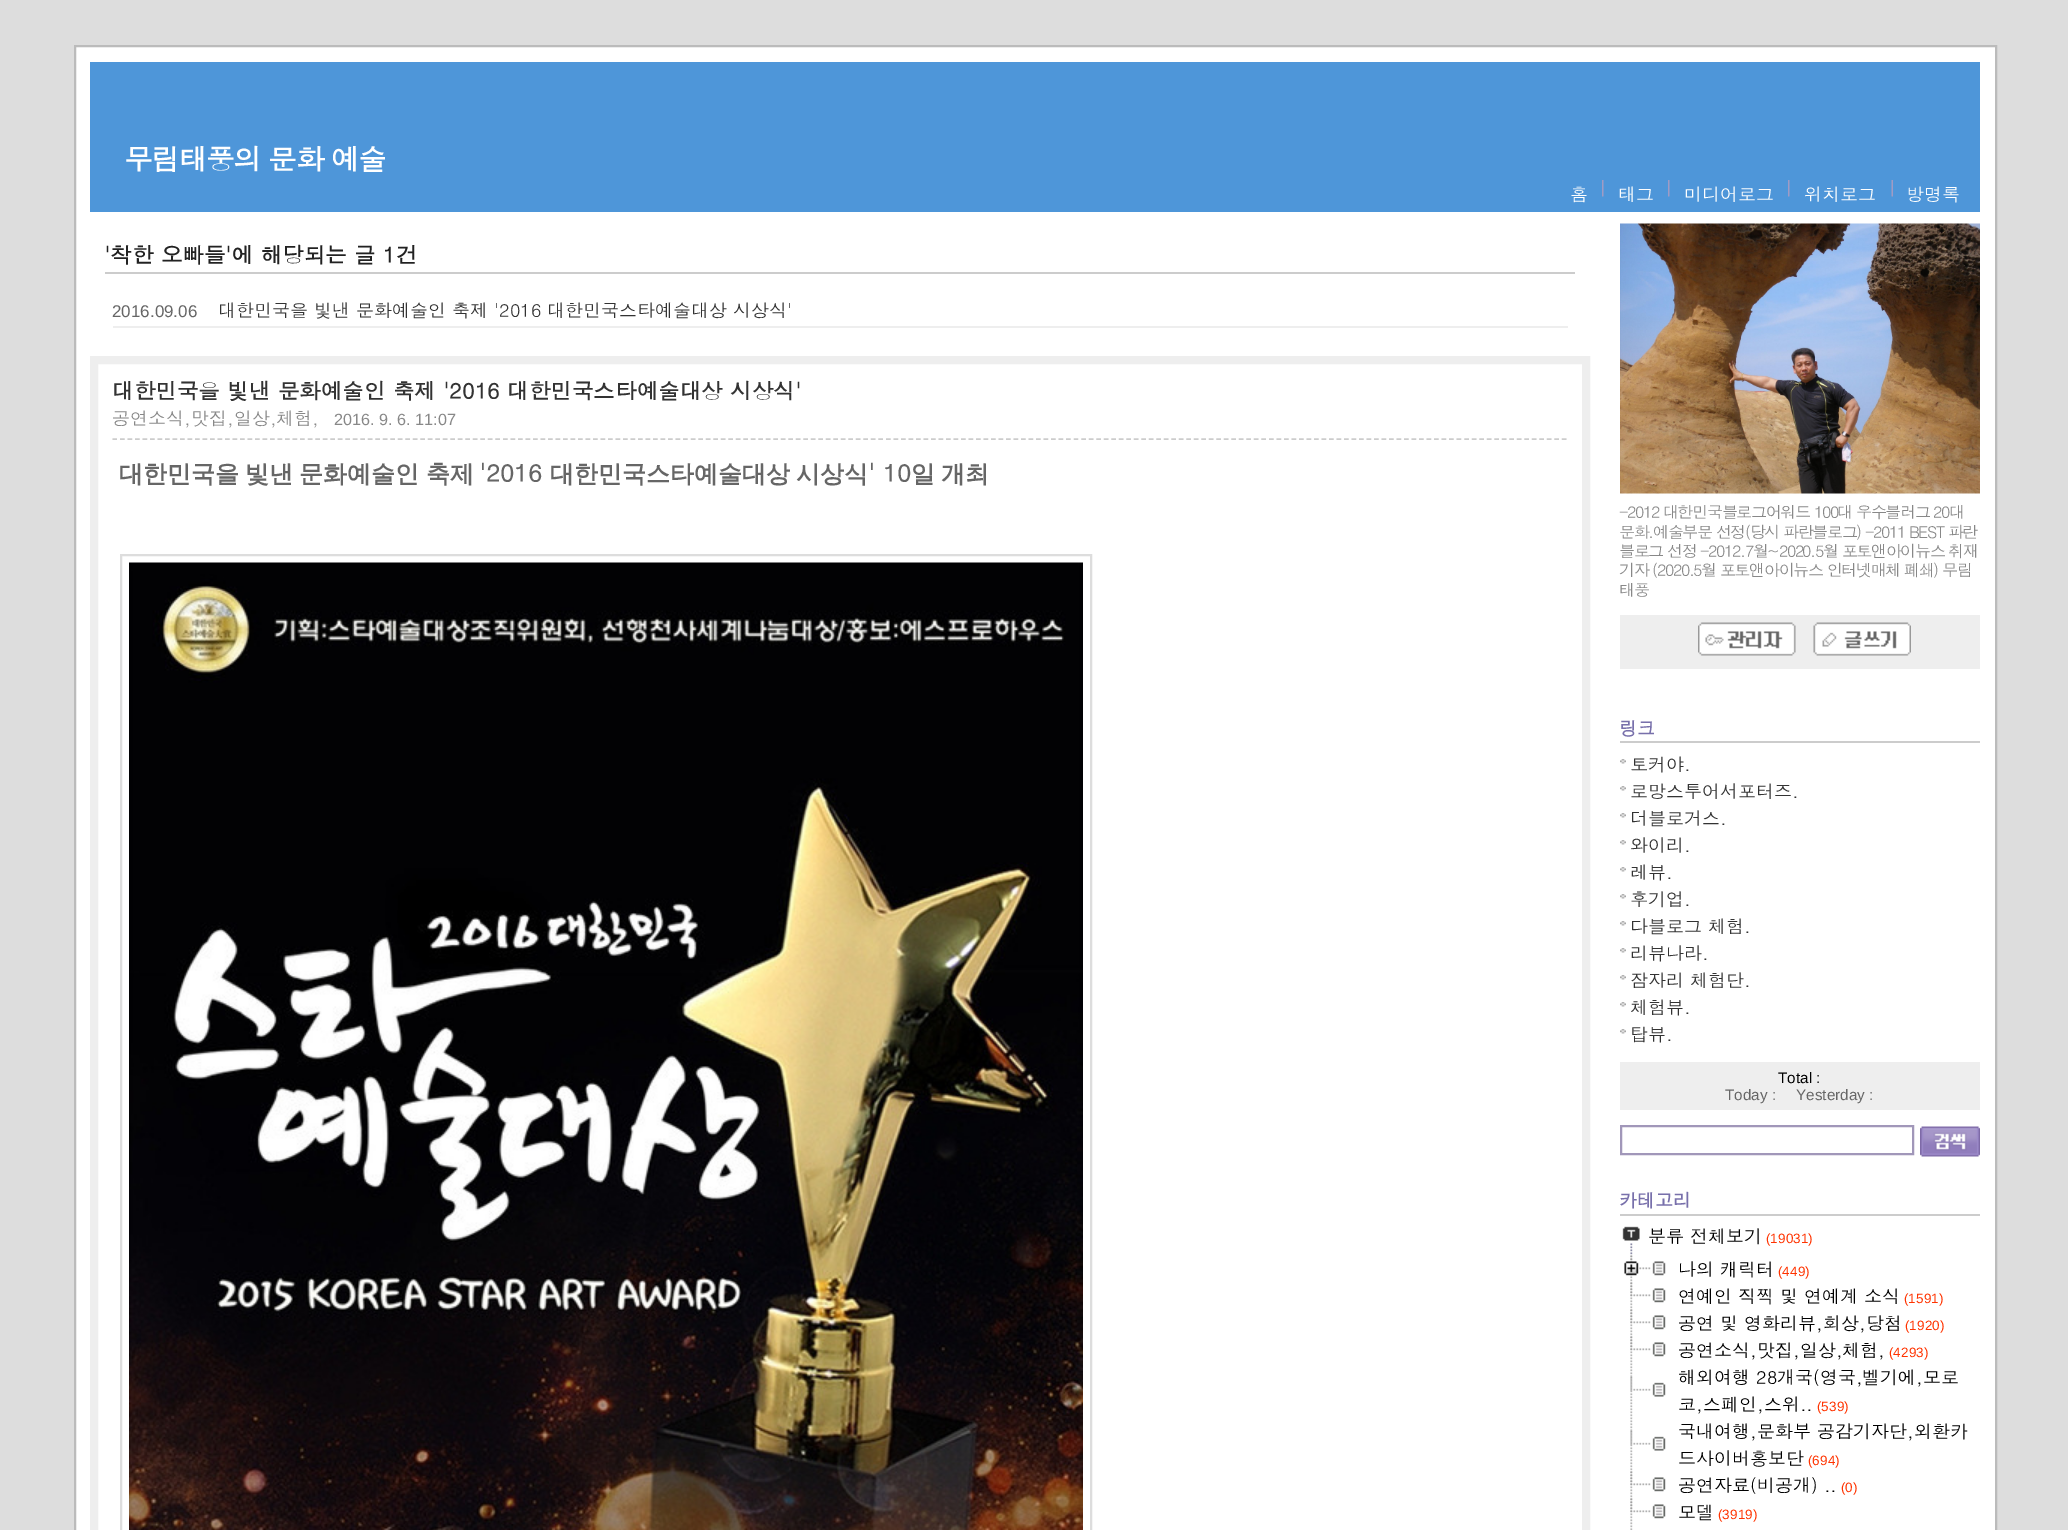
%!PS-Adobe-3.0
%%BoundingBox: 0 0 2068 1530
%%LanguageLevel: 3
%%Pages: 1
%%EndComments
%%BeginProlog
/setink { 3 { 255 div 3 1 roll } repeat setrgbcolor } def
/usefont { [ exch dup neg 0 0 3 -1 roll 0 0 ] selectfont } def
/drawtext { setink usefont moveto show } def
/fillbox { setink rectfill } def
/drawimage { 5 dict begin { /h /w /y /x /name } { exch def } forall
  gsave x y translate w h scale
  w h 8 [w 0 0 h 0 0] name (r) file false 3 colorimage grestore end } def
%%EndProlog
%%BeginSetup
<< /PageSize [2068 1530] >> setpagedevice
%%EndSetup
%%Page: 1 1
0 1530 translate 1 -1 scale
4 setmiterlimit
0 0 2068 1530 221 221 221 fillbox
255 255 255 setink
75 46 moveto 1996 46 lineto 1996 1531 lineto 75 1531 lineto closepath gsave fill grestore
187 187 187 setink
2 setlinewidth
stroke
90 62 1890 150 78 150 217 fillbox
/Dotum-Bold 28.75 usefont
255 255 255 setink
124 170 moveto -1.5 0 (무림태풍의 문화 예술) ashow
(홈) 1570 201 /Dotum-Regular 18 255 255 255 drawtext
(assets/img1.rgb) 1602 180 2 17 drawimage
(태그) 1618 201 /Dotum-Regular 18 255 255 255 drawtext
(assets/img1.rgb) 1668 180 2 17 drawimage
(미디어로그) 1684 201 /Dotum-Regular 18 255 255 255 drawtext
(assets/img1.rgb) 1788 180 2 17 drawimage
(위치로그) 1804 201 /Dotum-Regular 18 255 255 255 drawtext
(assets/img2.rgb) 1891 180 2 17 drawimage
(방명록) 1906 201 /Dotum-Regular 18 255 255 255 drawtext
105 272 1470 2 204 204 204 fillbox
('착한 오빠들'에 해당되는 글 1건) 104 263 /Dotum-Bold 21.6 34 34 34 drawtext
113 326 1455 2 238 238 238 fillbox
(2016.09.06) 112 317 /LiberationSans-Regular 17 102 102 102 drawtext
(대한민국을 빛낸 문화예술인 축제 '2016 대한민국스타예술대상 시상식') 218 317 /Dotum-Regular 18 51 51 51 drawtext
238 238 238 setink
8 setlinewidth
94 360 1492 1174 rectstroke
204 204 204 setink
1.5 setlinewidth
[4.5 3.01] 0 setdash
112.5 439 moveto 1567.5 439 lineto stroke
(대한민국을 빛낸 문화예술인 축제 '2016 대한민국스타예술대상 시상식') 112 399 /Dotum-Bold 21.6 51 51 51 drawtext
(공연소식,맛집,일상,체험,) 112 425 /Dotum-Regular 18 136 136 136 drawtext
(2016. 9. 6. 11:07) 334 425 /LiberationSans-Regular 16.2 136 136 136 drawtext
/WenQuanYiZenHei-Bold 24 usefont
102 102 102 setink
119 482 moveto -1 0 32 (대한민국을 빛낸 문화예술인 축제) widthshow
('2016) 479 482 /Dotum-Bold 24 102 102 102 drawtext
/WenQuanYiZenHei-Bold 24 usefont
550 482 moveto -1 0 32 (대한민국스타예술대상 시상식) widthshow
(' 10) 868 482 /Dotum-Bold 24 102 102 102 drawtext
/WenQuanYiZenHei-Bold 24 usefont
911 482 moveto -1 0 32 (일 개최) widthshow
221 221 221 setink
2 setlinewidth
[] 0 setdash
121 555 970 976 rectstroke
(assets/img3.rgb) 129 562 954 968 drawimage
(assets/img4.rgb) 1620 223 360 271 drawimage
/Dotum-Regular 16.2 usefont
136 136 136 setink
1619 518 moveto -1.5 0 (-2012 대한민국블로그어워드 100대 우수블러그 20대) ashow
1619 538 moveto -1.5 0 (문화.예술부문 선정\(당시 파란블로그\) -2011 BEST 파란) ashow
1619 557 moveto -1.5 0 (블로그 선정 -2012.7월~2020.5월 포토앤아이뉴스 취재) ashow
1619 576 moveto -1.5 0 (기자 \(2020.5월 포토앤아이뉴스 인터넷매체 폐쇄\) 무림) ashow
1619 596 moveto -1.5 0 (태풍) ashow
1620 615 360 54 238 238 238 fillbox
(assets/img5.rgb) 1698 622 98 34 drawimage
(assets/img6.rgb) 1813 622 98 34 drawimage
1620 741 360 2 204 204 204 fillbox
(링크) 1619 735 /Dotum-Bold 18 120 112 171 drawtext
(assets/img7.rgb) 1620 759 6 5 drawimage
(토커야.) 1630 771 /Dotum-Regular 18 51 51 51 drawtext
(assets/img7.rgb) 1620 786 6 5 drawimage
(로망스투어서포터즈.) 1630 798 /Dotum-Regular 18 51 51 51 drawtext
(assets/img7.rgb) 1620 813 6 5 drawimage
(더블로거스.) 1630 825 /Dotum-Regular 18 51 51 51 drawtext
(assets/img7.rgb) 1620 840 6 5 drawimage
(와이리.) 1630 852 /Dotum-Regular 18 51 51 51 drawtext
(assets/img7.rgb) 1620 867 6 5 drawimage
(레뷰.) 1630 879 /Dotum-Regular 18 51 51 51 drawtext
(assets/img7.rgb) 1620 894 6 5 drawimage
(후기업.) 1630 906 /Dotum-Regular 18 51 51 51 drawtext
(assets/img7.rgb) 1620 921 6 5 drawimage
(다블로그 체험.) 1630 933 /Dotum-Regular 18 51 51 51 drawtext
(assets/img7.rgb) 1620 948 6 5 drawimage
(리뷰나라.) 1630 960 /Dotum-Regular 18 51 51 51 drawtext
(assets/img7.rgb) 1620 975 6 5 drawimage
(잠자리 체험단.) 1630 987 /Dotum-Regular 18 51 51 51 drawtext
(assets/img7.rgb) 1620 1002 6 5 drawimage
(체험뷰.) 1630 1014 /Dotum-Regular 18 51 51 51 drawtext
(assets/img7.rgb) 1620 1029 6 5 drawimage
(탑뷰.) 1630 1041 /Dotum-Regular 18 51 51 51 drawtext
1620 1062 360 48 238 238 238 fillbox
(Total :) 1778 1083 /LiberationSans-Regular 15.25 0 0 0 drawtext
(Today :) 1725 1100 /LiberationSans-Regular 15.25 102 102 102 drawtext
(Yesterday :) 1796 1100 /LiberationSans-Regular 15.25 102 102 102 drawtext
161 151 185 setink
1621 1126 292 28 rectstroke
(assets/img8.rgb) 1920 1126 60 31 drawimage
1620 1214 360 2 204 204 204 fillbox
(카테고리) 1619 1207 /Dotum-Bold 18 120 112 171 drawtext
(assets/img9.rgb) 1622 1226 18 29 drawimage
(분류 전체보기) 1648 1243 /Dotum-Regular 18 0 0 0 drawtext
(\(19031\)) 1766 1243 /LiberationSans-Regular 13.5 255 51 0 drawtext
(assets/img10.rgb) 1630 1255 3 28 drawimage
(assets/img11.rgb) 1624 1255 42 21 drawimage
(나의 캐릭터) 1678 1276 /Dotum-Regular 18 0 0 0 drawtext
(\(449\)) 1778 1276 /LiberationSans-Regular 13.5 255 51 0 drawtext
(assets/img12.rgb) 1630 1282 3 28 drawimage
(assets/img13.rgb) 1630 1282 36 21 drawimage
(연예인 직찍 및 연예계 소식) 1678 1303 /Dotum-Regular 18 0 0 0 drawtext
(\(1591\)) 1904 1303 /LiberationSans-Regular 13.5 255 51 0 drawtext
(assets/img12.rgb) 1630 1309 3 28 drawimage
(assets/img13.rgb) 1630 1309 36 21 drawimage
(공연 및 영화리뷰,회상,당첨) 1678 1330 /Dotum-Regular 18 0 0 0 drawtext
(\(1920\)) 1905 1330 /LiberationSans-Regular 13.5 255 51 0 drawtext
(assets/img12.rgb) 1630 1336 3 28 drawimage
(assets/img13.rgb) 1630 1336 36 21 drawimage
(공연소식,맛집,일상,체험,) 1678 1357 /Dotum-Regular 18 0 0 0 drawtext
(\(4293\)) 1889 1357 /LiberationSans-Regular 13.5 255 51 0 drawtext
(assets/img14.rgb) 1630 1363 3 55 drawimage
(assets/img15.rgb) 1630 1377 36 20 drawimage
(해외여행 28개국\(영국,벨기에,모로) 1678 1384 /Dotum-Regular 18 0 0 0 drawtext
(코,스페인,스위..) 1678 1411 /Dotum-Regular 18 0 0 0 drawtext
(\(539\)) 1817 1411 /LiberationSans-Regular 13.5 255 51 0 drawtext
(assets/img14.rgb) 1630 1417 3 55 drawimage
(assets/img15.rgb) 1630 1431 36 20 drawimage
(국내여행,문화부 공감기자단,외환카) 1678 1438 /Dotum-Regular 18 0 0 0 drawtext
(드사이버홍보단) 1678 1465 /Dotum-Regular 18 0 0 0 drawtext
(\(694\)) 1808 1465 /LiberationSans-Regular 13.5 255 51 0 drawtext
(assets/img12.rgb) 1630 1471 3 28 drawimage
(assets/img13.rgb) 1630 1471 36 21 drawimage
(공연자료\(비공개\) ..) 1678 1492 /Dotum-Regular 18 0 0 0 drawtext
(\(0\)) 1841 1492 /LiberationSans-Regular 13.5 255 51 0 drawtext
(assets/img12.rgb) 1630 1498 3 28 drawimage
(assets/img13.rgb) 1630 1498 36 21 drawimage
(모델) 1678 1519 /Dotum-Regular 18 0 0 0 drawtext
(\(3919\)) 1718 1519 /LiberationSans-Regular 13.5 255 51 0 drawtext
(assets/img16.rgb) 1630 1525 3 5 drawimage
showpage
%%EOF
